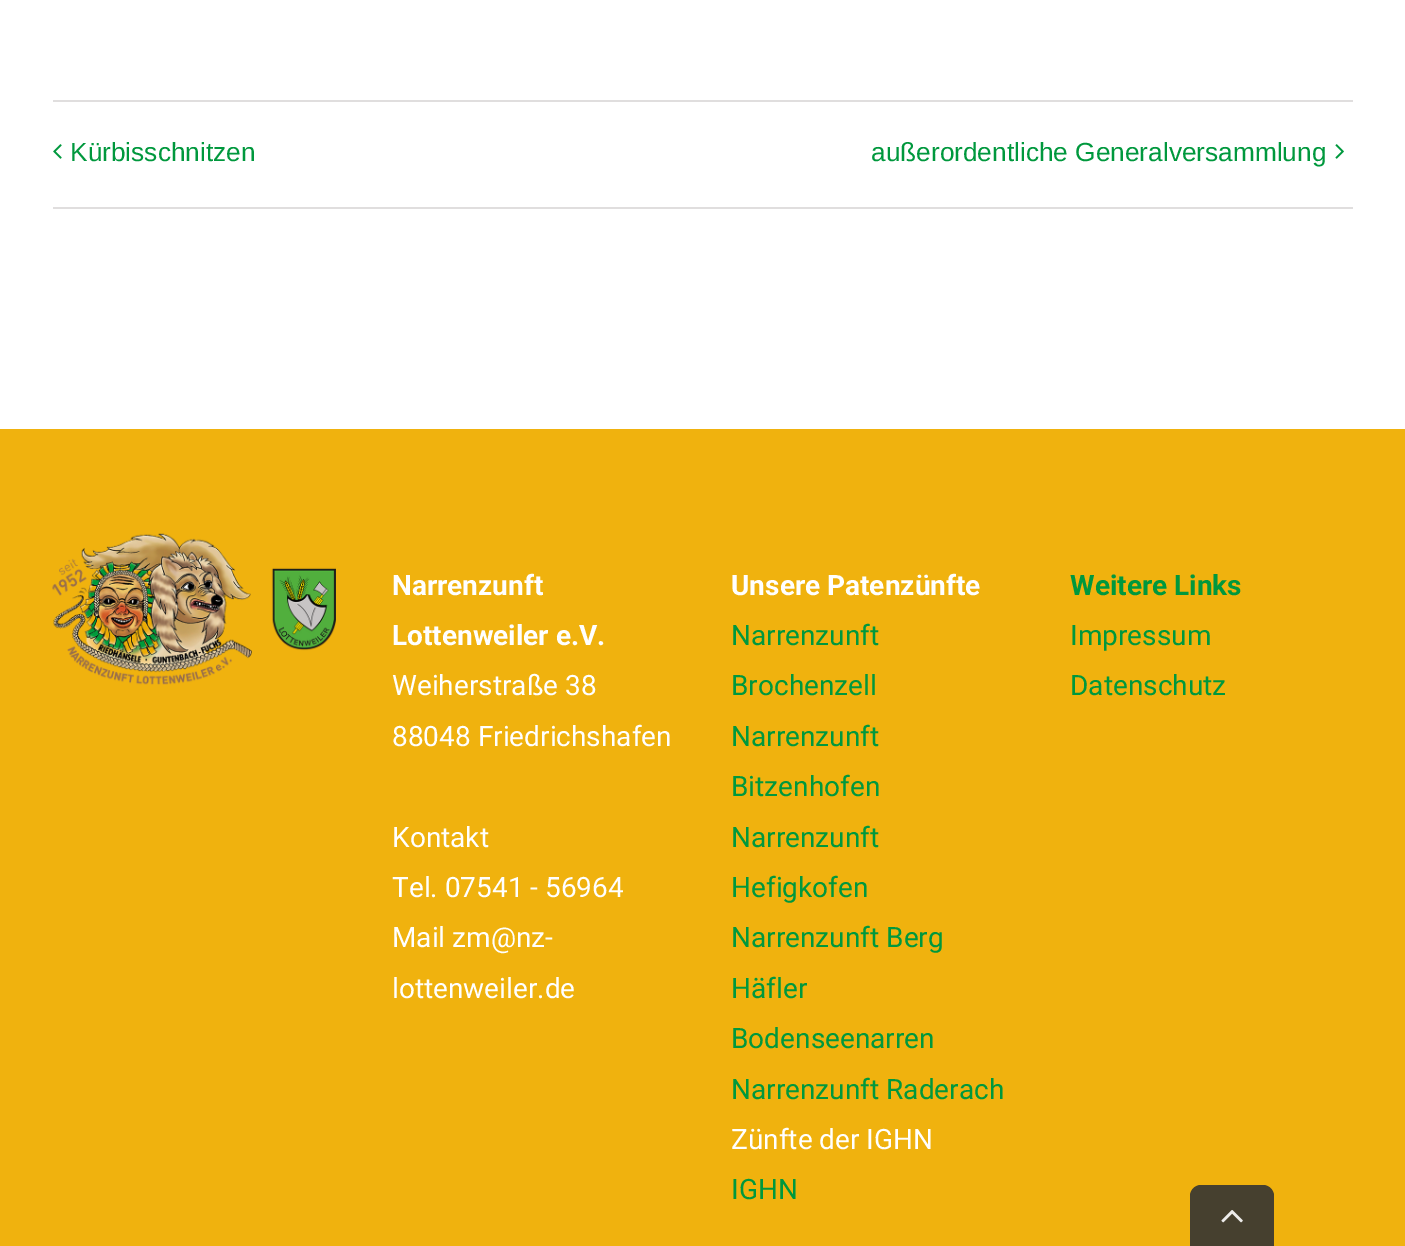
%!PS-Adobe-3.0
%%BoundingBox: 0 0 1405 1246
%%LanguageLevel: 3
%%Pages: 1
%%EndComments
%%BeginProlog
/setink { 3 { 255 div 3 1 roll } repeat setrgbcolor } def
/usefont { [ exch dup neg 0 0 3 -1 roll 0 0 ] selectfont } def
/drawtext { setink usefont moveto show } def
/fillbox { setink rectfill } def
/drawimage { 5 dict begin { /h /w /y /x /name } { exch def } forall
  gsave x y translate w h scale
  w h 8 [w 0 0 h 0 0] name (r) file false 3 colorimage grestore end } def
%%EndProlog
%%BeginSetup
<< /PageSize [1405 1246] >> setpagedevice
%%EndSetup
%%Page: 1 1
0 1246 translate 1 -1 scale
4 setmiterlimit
0 0 1405 1246 255 255 255 fillbox
53 100 1300 2 224 222 222 fillbox
53 207 1300 2 224 222 222 fillbox
(assets/img1.rgb) 53 144 9 15 drawimage
(Kürbisschnitzen) 70 161 /LiberationSans-Regular 26.25 0 152 61 drawtext
(außerordentliche Generalversammlung) 871 161 /LiberationSans-Regular 26.25 0 152 61 drawtext
(assets/img2.rgb) 1335 144 9 15 drawimage
0 429 1405 817 240 178 14 fillbox
(assets/img3.rgb) 52 533 284 152 drawimage
(Narrenzunft) 392 595 /Roboto-Bold 28 255 255 255 drawtext
(Lottenweiler e.V.) 392 645 /Roboto-Bold 28 255 255 255 drawtext
(Weiherstraße 38) 392 695 /Roboto-Regular 28 255 255 255 drawtext
(88048 Friedrichshafen) 392 746 /Roboto-Regular 28 255 255 255 drawtext
(Kontakt) 392 847 /Roboto-Regular 28 255 255 255 drawtext
(Tel. 07541 - 56964) 392 897 /Roboto-Regular 28 255 255 255 drawtext
(Mail zm@nz-) 392 947 /Roboto-Regular 28 255 255 255 drawtext
(lottenweiler.de) 392 998 /Roboto-Regular 28 255 255 255 drawtext
(Unsere Patenzünfte) 731 595 /Roboto-Bold 28 255 255 255 drawtext
(Narrenzunft) 731 645 /Roboto-Regular 28 0 152 61 drawtext
(Brochenzell) 731 695 /Roboto-Regular 28 0 152 61 drawtext
(Narrenzunft) 731 746 /Roboto-Regular 28 0 152 61 drawtext
(Bitzenhofen) 731 796 /Roboto-Regular 28 0 152 61 drawtext
(Narrenzunft) 731 847 /Roboto-Regular 28 0 152 61 drawtext
(Hefigkofen) 731 897 /Roboto-Regular 28 0 152 61 drawtext
(Narrenzunft Berg) 731 947 /Roboto-Regular 28 0 152 61 drawtext
(Häfler) 731 998 /Roboto-Regular 28 0 152 61 drawtext
(Bodenseenarren) 731 1048 /Roboto-Regular 28 0 152 61 drawtext
(Narrenzunft Raderach) 731 1099 /Roboto-Regular 28 0 152 61 drawtext
(Zünfte der IGHN) 731 1149 /Roboto-Regular 28 255 255 255 drawtext
(IGHN) 731 1199 /Roboto-Regular 28 0 152 61 drawtext
(Weitere Links) 1070 595 /Roboto-Bold 28 0 152 61 drawtext
(Impressum) 1070 645 /Roboto-Regular 28 0 152 61 drawtext
(Datenschutz) 1070 695 /Roboto-Regular 28 0 152 61 drawtext
70 64 47 setink
1201 1185 moveto 1263 1185 lineto 1269 1185 1274 1190 1274 1196 curveto 1274 1246 lineto 1190 1246 lineto 1190 1196 lineto 1190 1190 1195 1185 1201 1185 curveto closepath fill
(assets/img4.rgb) 1221 1210 22 13 drawimage
showpage
%%EOF
